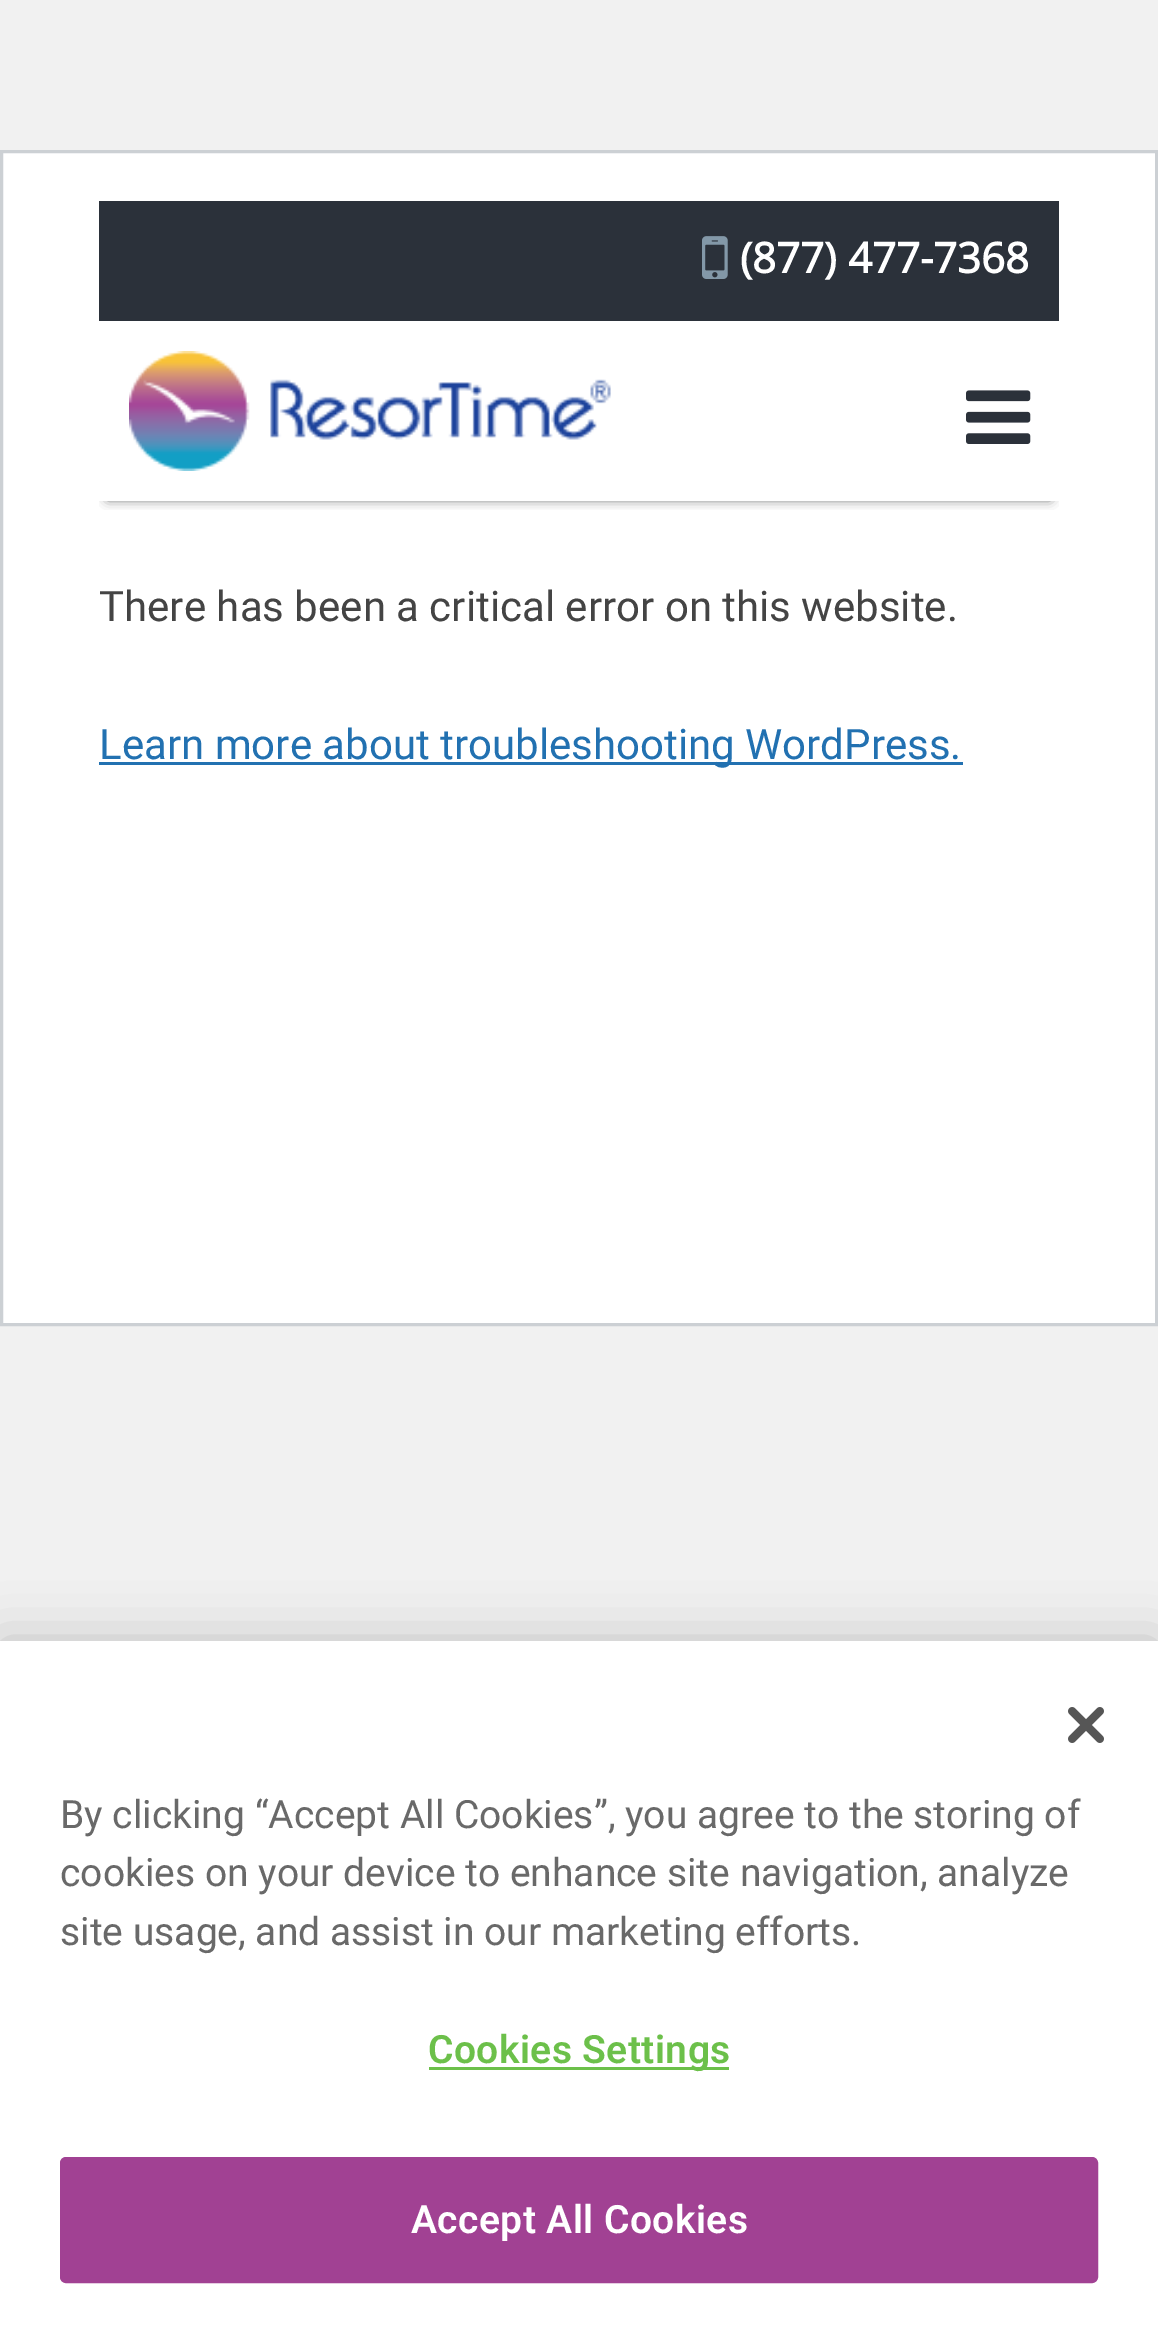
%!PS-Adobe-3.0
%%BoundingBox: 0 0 1158 2330
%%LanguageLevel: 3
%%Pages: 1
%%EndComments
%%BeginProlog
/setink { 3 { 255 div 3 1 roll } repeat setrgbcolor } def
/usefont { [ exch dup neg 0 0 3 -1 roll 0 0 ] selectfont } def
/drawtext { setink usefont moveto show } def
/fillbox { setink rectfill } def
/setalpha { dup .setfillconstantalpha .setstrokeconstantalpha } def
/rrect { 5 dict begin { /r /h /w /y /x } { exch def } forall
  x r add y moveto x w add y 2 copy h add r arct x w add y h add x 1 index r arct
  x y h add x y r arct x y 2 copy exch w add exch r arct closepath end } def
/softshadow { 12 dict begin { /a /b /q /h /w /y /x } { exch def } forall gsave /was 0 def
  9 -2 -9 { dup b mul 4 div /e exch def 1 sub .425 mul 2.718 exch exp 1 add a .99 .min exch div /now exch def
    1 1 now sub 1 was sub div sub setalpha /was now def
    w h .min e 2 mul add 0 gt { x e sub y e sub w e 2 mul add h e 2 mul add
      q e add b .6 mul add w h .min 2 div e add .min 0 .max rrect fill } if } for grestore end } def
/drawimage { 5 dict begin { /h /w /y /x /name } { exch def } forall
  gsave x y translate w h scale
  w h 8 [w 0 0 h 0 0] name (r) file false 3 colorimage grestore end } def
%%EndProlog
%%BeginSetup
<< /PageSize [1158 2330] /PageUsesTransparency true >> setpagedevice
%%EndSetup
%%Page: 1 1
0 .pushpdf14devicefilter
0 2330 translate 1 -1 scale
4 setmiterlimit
0 0 1158 2330 241 241 241 fillbox
255 255 255 setink
1.5 151.5 moveto 1156.5 151.5 lineto 1156.5 1324.5 lineto 1.5 1324.5 lineto closepath gsave fill grestore
204 208 212 setink
3 setlinewidth
stroke
gsave
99 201 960 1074 rectclip
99 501 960 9 rectclip
51 57 57 setink
108 216 942 282 0 6 1 softshadow
grestore
99 201 960 120 43 49 58 fillbox
(assets/img1.rgb) 702 236 26 43 drawimage
(\(877\) 477-7368) 740 273 /OpenSans-Bold 42 255 255 255 drawtext
(assets/img2.rgb) 129 351 482 120 drawimage
(assets/img3.rgb) 966 390 65 54 drawimage
(There has been a critical error on this website.) 99 621 /Roboto-Regular 42 68 68 68 drawtext
99 762 864 3 34 113 177 fillbox
(Learn more about troubleshooting WordPress.) 99 759 /Roboto-Regular 42 34 113 177 drawtext
0 0 0 setink
0 1641 1158 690 0 27 0.2 softshadow
0 1641 1158 689 255 255 255 fillbox
(assets/img4.rgb) 1068 1707 36 36 drawimage
(By clicking “Accept All Cookies”, you agree to the storing of) 60 1828 /Roboto-Regular 39 105 105 105 drawtext
(cookies on your device to enhance site navigation, analyze) 60 1886 /Roboto-Regular 39 105 105 105 drawtext
(site usage, and assist in our marketing efforts.) 60 1945 /Roboto-Regular 39 105 105 105 drawtext
429 2067 300 3 108 192 74 fillbox
/Roboto-SemiBold 39 usefont
428 2063 moveto 0.4 0 (Cookies Settings) ashow
161 65 147 setink
61.5 2158.5 1035 123 4.5 rrect gsave fill grestore
stroke
255 255 255 setink
411 2233 moveto 0.4 0 (Accept All Cookies) ashow
.poppdf14devicefilter showpage
%%EOF
